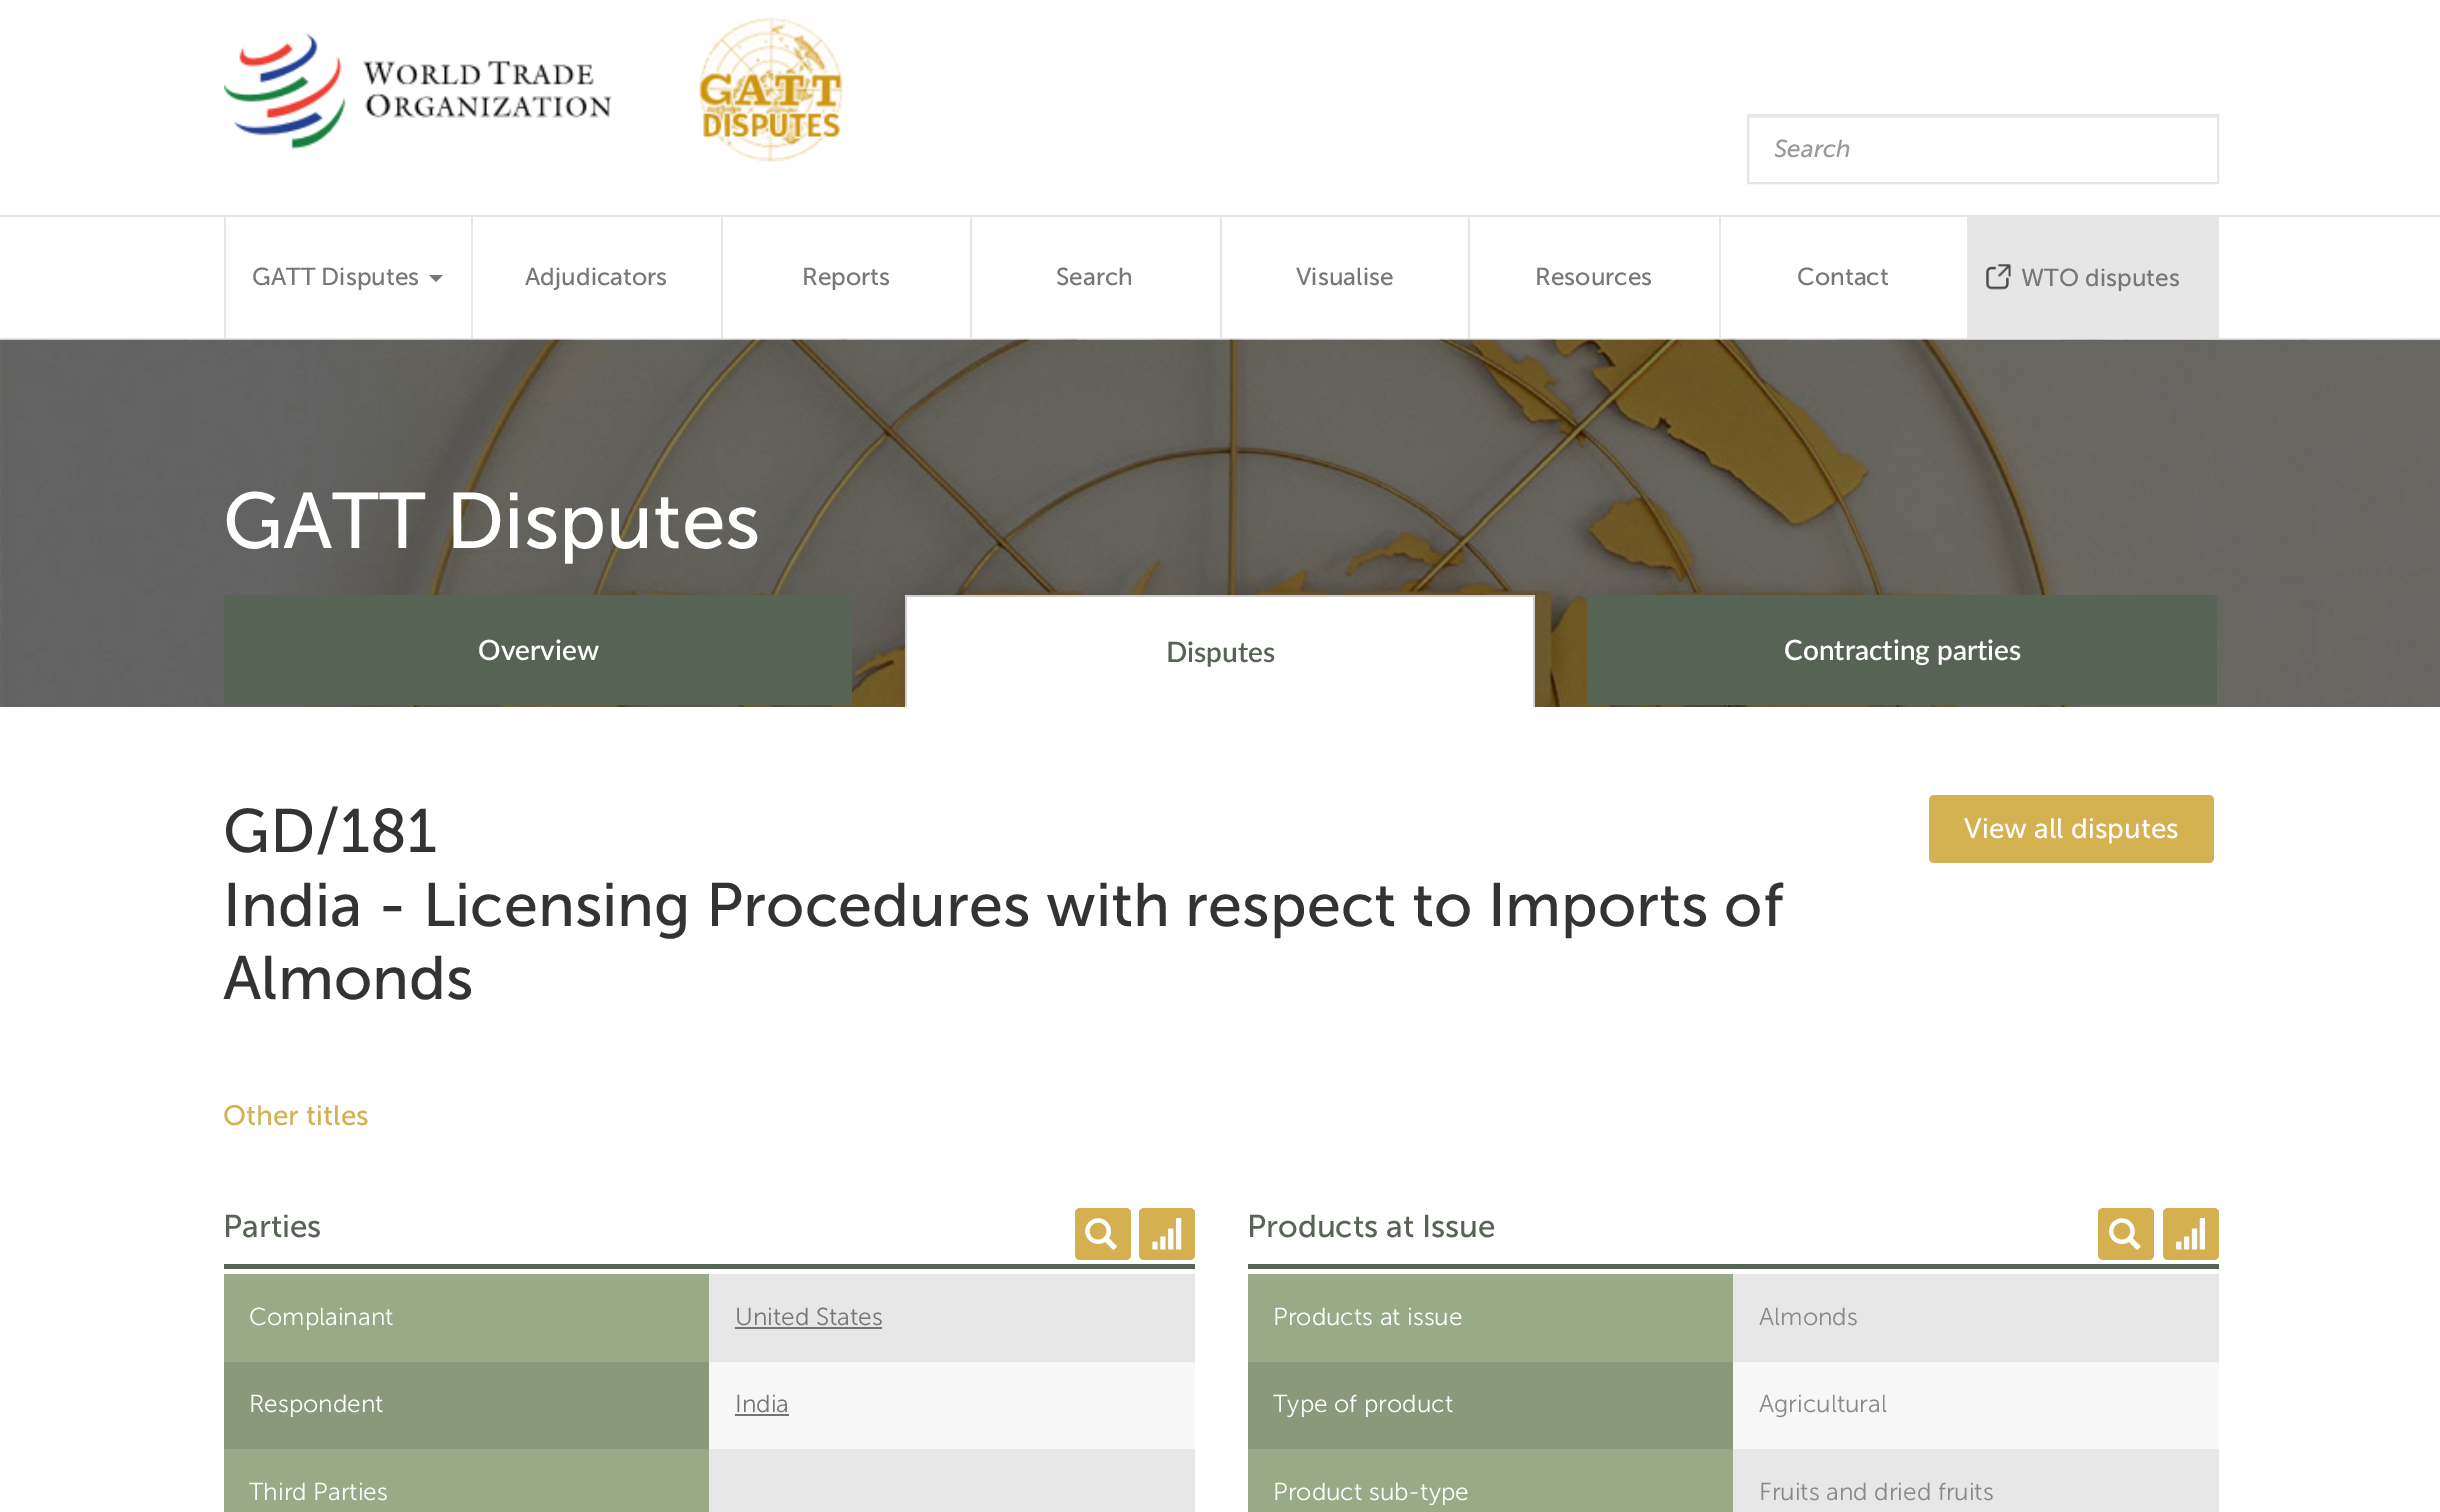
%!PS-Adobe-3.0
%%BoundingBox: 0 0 2440 1512
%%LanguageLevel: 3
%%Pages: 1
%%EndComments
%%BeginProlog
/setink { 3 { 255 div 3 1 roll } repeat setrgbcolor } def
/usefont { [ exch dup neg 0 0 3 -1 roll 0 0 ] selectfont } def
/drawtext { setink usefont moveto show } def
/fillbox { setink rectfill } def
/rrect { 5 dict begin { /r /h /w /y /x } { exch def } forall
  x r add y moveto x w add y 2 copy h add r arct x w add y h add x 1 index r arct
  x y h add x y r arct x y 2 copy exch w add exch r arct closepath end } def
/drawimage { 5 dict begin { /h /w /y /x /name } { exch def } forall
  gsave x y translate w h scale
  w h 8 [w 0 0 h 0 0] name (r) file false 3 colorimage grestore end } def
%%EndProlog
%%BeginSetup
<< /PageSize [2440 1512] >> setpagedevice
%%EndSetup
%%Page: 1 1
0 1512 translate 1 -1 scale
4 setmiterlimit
0 0 2440 1512 255 255 255 fillbox
(assets/img1.rgb) 224 17 619 145 drawimage
1748 116 469 2 236 236 236 fillbox
230 230 230 setink
2 setlinewidth
1748 115 470 68 rectstroke
gsave
1775 135 416 30 rectclip
(Search) 1774 157 /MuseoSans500-Italic 24.5 153 153 153 drawtext
grestore
0 215 2440 2 230 230 230 fillbox
0 338 2440 2 230 230 230 fillbox
471 217 2 123 230 230 230 fillbox
224 217 2 123 230 230 230 fillbox
(GATT Disputes) 252 285 /MuseoSans500-Regular 24.5 119 119 119 drawtext
429 275 moveto 443 275 lineto 436 282 lineto closepath fill
721 217 2 123 230 230 230 fillbox
(Adjudicators) 525 285 /MuseoSans500-Regular 24.5 119 119 119 drawtext
970 217 2 123 230 230 230 fillbox
(Reports) 802 285 /MuseoSans500-Regular 24.5 119 119 119 drawtext
1220 217 2 123 230 230 230 fillbox
(Search) 1056 285 /MuseoSans500-Regular 24.5 119 119 119 drawtext
1468 217 2 123 230 230 230 fillbox
(Visualise) 1296 285 /MuseoSans500-Regular 24.5 119 119 119 drawtext
1719 217 2 123 230 230 230 fillbox
(Resources) 1535 285 /MuseoSans500-Regular 24.5 119 119 119 drawtext
1967 217 2 123 230 230 230 fillbox
(Contact) 1797 285 /MuseoSans500-Regular 24.5 119 119 119 drawtext
1969 217 250 121 230 230 230 fillbox
(assets/img2.rgb) 1986 264 25 26 drawimage
(WTO disputes) 2021 286 /MuseoSans500-Regular 24.5 119 119 119 drawtext
(assets/img3.rgb) 0 339 2440 1 drawimage
(assets/img4.rgb) 0 339 2440 368 drawimage
(GATT Disputes) 223 548 /MuseoSans500-Regular 78.75 255 255 255 drawtext
224 595 628 110 87 99 85 fillbox
(Overview) 478 660 /Lato-SemiBold 28 255 255 255 drawtext
907 597 626 110 255 255 255 fillbox
905 595 630 2 208 207 208 fillbox
1533 595 2 112 208 207 208 fillbox
905 595 2 112 208 207 208 fillbox
(Disputes) 1166 662 /Lato-SemiBold 28 87 99 85 drawtext
1587 595 630 110 87 99 85 fillbox
(Contracting parties) 1784 660 /Lato-SemiBold 28 255 255 255 drawtext
(GD/181) 223 852 /MuseoSans500-Regular 61.25 51 51 51 drawtext
(India - Licensing Procedures with respect to Imports of) 223 926 /MuseoSans500-Regular 61.25 51 51 51 drawtext
(Almonds) 223 999 /MuseoSans500-Regular 61.25 51 51 51 drawtext
212 177 81 setink
1929 795 285 68 5 rrect fill
(View all disputes) 1964 838 /MuseoSans500-Regular 28 255 255 255 drawtext
(Other titles) 223 1125 /MuseoSans500-Regular 28 212 176 81 drawtext
224 1264 971 5 87 99 85 fillbox
(Parties) 223 1237 /MuseoSans500-Regular 31.5 87 99 85 drawtext
212 176 81 setink
1075 1208 56 52 5 rrect fill
(assets/img5.rgb) 1085 1218 32 32 drawimage
1139 1208 56 52 5 rrect fill
(assets/img6.rgb) 1152 1218 30 32 drawimage
224 1274 485 88 153 170 135 fillbox
(Complainant) 249 1325 /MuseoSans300-Light 24.5 255 255 255 drawtext
709 1274 486 88 231 231 231 fillbox
(United States) 735 1325 /MuseoSans300-Light 24.5 119 119 119 drawtext
735 1327 147 2 116 116 116 fillbox
224 1362 485 87 137 153 121 fillbox
(Respondent) 249 1412 /MuseoSans300-Light 24.5 255 255 255 drawtext
709 1362 486 87 247 247 247 fillbox
(India) 735 1412 /MuseoSans300-Light 24.5 119 119 119 drawtext
735 1414 54 2 116 116 116 fillbox
224 1449 485 63 153 170 135 fillbox
(Third Parties) 249 1500 /MuseoSans300-Light 24.5 255 255 255 drawtext
709 1449 486 63 231 231 231 fillbox
1248 1264 971 5 87 99 85 fillbox
(Products at Issue) 1247 1237 /MuseoSans500-Regular 31.5 87 99 85 drawtext
212 176 81 setink
2098 1208 56 52 5 rrect fill
(assets/img7.rgb) 2109 1218 32 32 drawimage
2163 1208 56 52 5 rrect fill
(assets/img8.rgb) 2176 1218 29 32 drawimage
1248 1274 485 88 153 170 135 fillbox
(Products at issue) 1273 1325 /MuseoSans300-Light 24.5 255 255 255 drawtext
1733 1274 486 88 231 231 231 fillbox
(Almonds) 1759 1325 /MuseoSans300-Light 24.5 137 137 137 drawtext
1248 1362 485 87 137 153 121 fillbox
(Type of product) 1273 1412 /MuseoSans300-Light 24.5 255 255 255 drawtext
1733 1362 486 87 247 247 247 fillbox
(Agricultural) 1759 1412 /MuseoSans300-Light 24.5 137 137 137 drawtext
1248 1449 485 63 153 170 135 fillbox
(Product sub-type) 1273 1500 /MuseoSans300-Light 24.5 255 255 255 drawtext
1733 1449 486 63 231 231 231 fillbox
(Fruits and dried fruits) 1759 1500 /MuseoSans300-Light 24.5 137 137 137 drawtext
showpage
%%EOF
